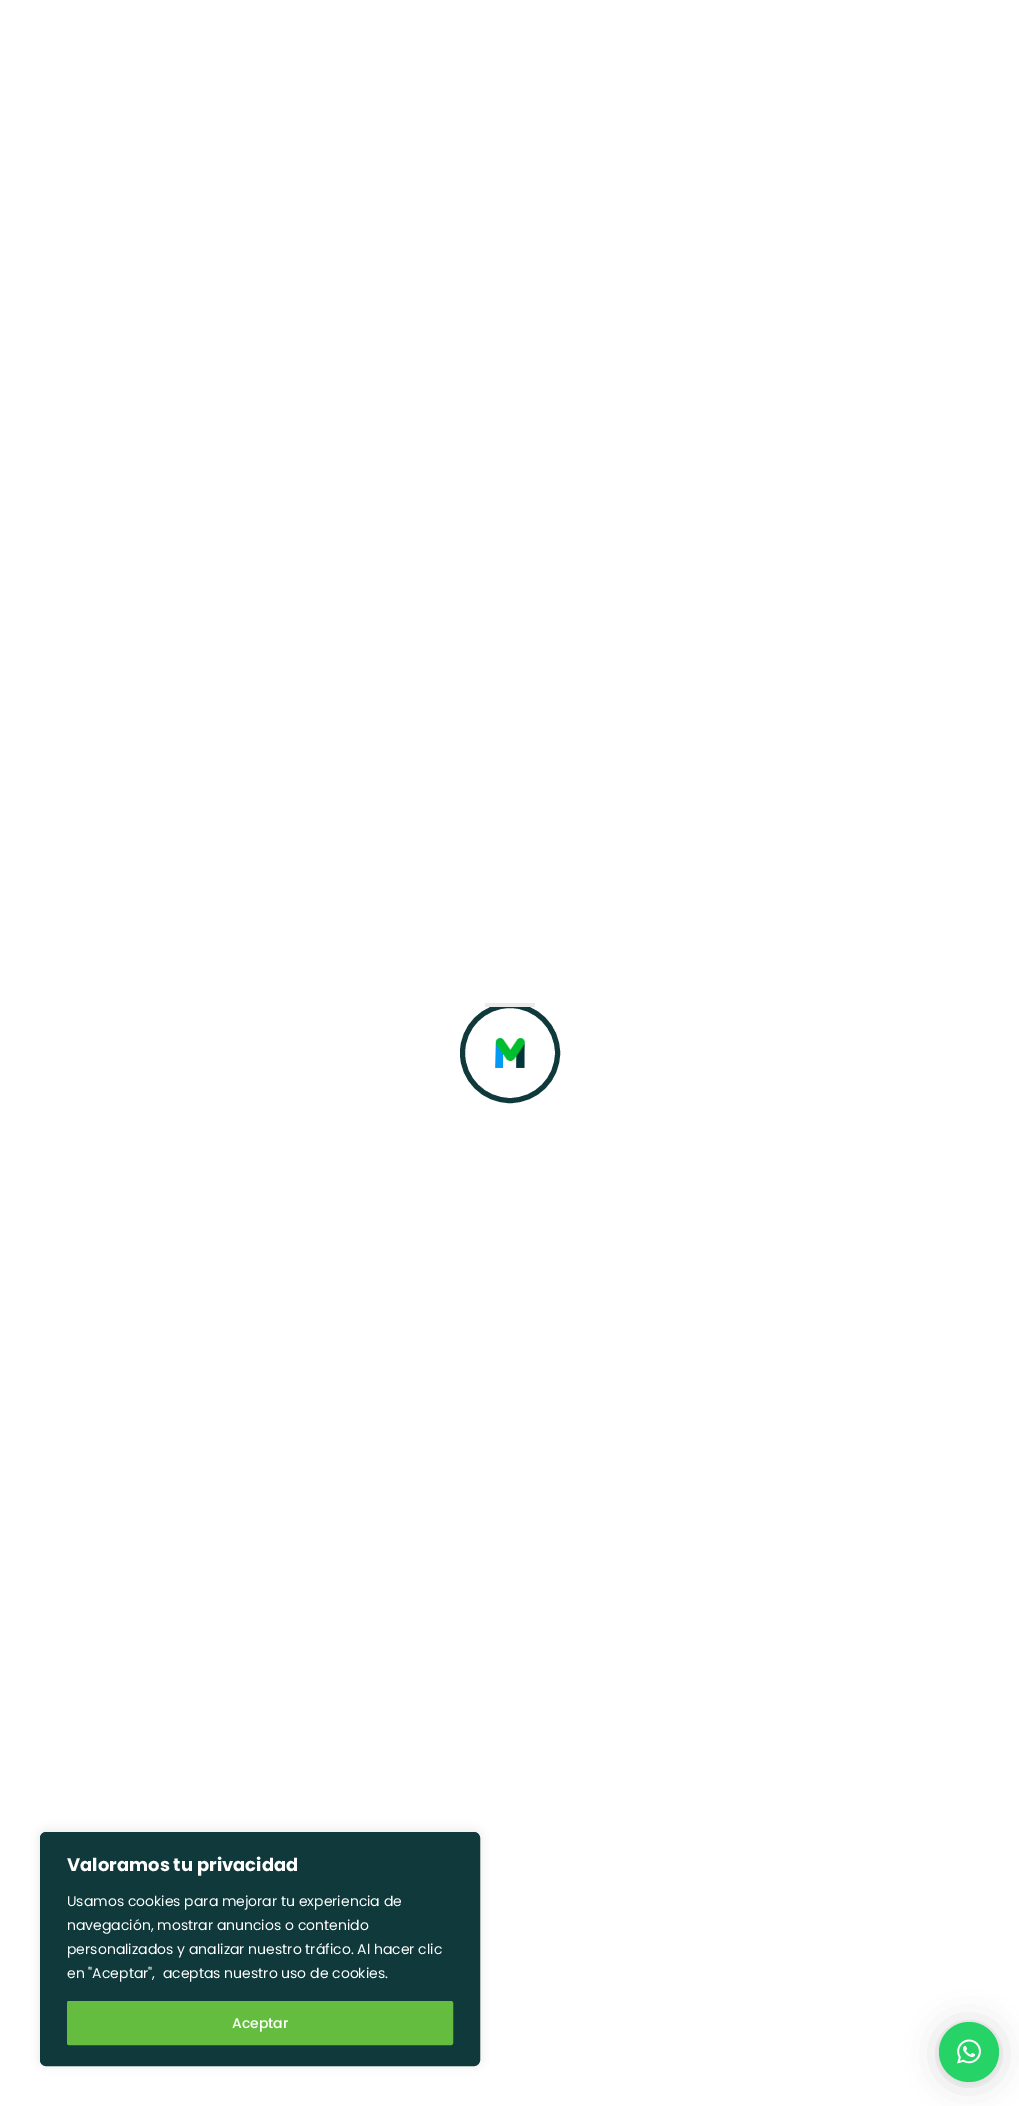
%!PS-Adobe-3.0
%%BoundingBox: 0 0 1019 2106
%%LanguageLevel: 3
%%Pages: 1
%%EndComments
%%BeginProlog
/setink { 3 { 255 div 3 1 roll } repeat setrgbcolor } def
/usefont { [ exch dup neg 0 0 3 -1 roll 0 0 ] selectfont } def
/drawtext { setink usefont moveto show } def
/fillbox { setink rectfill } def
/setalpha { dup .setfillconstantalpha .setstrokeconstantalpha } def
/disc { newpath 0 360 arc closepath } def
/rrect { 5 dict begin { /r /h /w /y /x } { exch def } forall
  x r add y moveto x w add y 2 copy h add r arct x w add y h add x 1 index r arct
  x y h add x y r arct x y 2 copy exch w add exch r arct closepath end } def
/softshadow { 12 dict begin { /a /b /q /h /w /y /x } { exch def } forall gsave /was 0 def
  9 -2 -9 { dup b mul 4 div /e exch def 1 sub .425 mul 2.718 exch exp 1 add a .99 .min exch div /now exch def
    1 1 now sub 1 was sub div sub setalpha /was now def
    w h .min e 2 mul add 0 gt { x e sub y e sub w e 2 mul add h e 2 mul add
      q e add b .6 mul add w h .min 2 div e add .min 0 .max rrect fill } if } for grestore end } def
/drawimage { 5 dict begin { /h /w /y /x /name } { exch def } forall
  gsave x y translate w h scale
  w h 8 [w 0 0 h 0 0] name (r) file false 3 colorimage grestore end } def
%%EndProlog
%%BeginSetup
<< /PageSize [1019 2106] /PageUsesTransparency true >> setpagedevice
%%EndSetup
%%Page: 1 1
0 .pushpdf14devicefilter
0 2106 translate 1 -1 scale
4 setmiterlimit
0 0 1019 2106 255 255 255 fillbox
15 57 59 setink
5 setlinewidth
510 1053 47.5 disc stroke
485 1003 50 4 235 235 236 fillbox
(assets/img1.rgb) 495 1038 30 30 drawimage
172 171 171 setink
40 1831 440 234 6 5 0.3 softshadow
15 57 59 setink
40.5 1832.5 439 233 5.5 rrect gsave fill grestore
1 setlinewidth
stroke
(Valoramos tu privacidad) 67 1871 /Poppins-Bold 18 255 255 255 drawtext
(Usamos cookies para mejorar tu experiencia de) 67 1906 /Poppins-Regular 14 255 255 255 drawtext
(navegación, mostrar anuncios o contenido) 67 1930 /Poppins-Regular 14 255 255 255 drawtext
(personalizados y analizar nuestro tráfico. Al hacer clic) 67 1954 /Poppins-Regular 14 255 255 255 drawtext
(en "Aceptar",  aceptas nuestro uso de cookies.) 67 1978 /Poppins-Regular 14 255 255 255 drawtext
101 189 63 setink
68 2002 384 42 1 rrect gsave fill grestore
2 setlinewidth
stroke
(Aceptar) 232 2028 /Poppins-Medium 14 255 255 255 drawtext
0 0 0 setink
939 2024 60 60 30 16 0.16 softshadow
939 2023 60 60 30 3 0.06 softshadow
37 211 102 setink
969 2052 30 disc fill
(assets/img2.rgb) 957 2039 24 25 drawimage
.poppdf14devicefilter showpage
%%EOF
